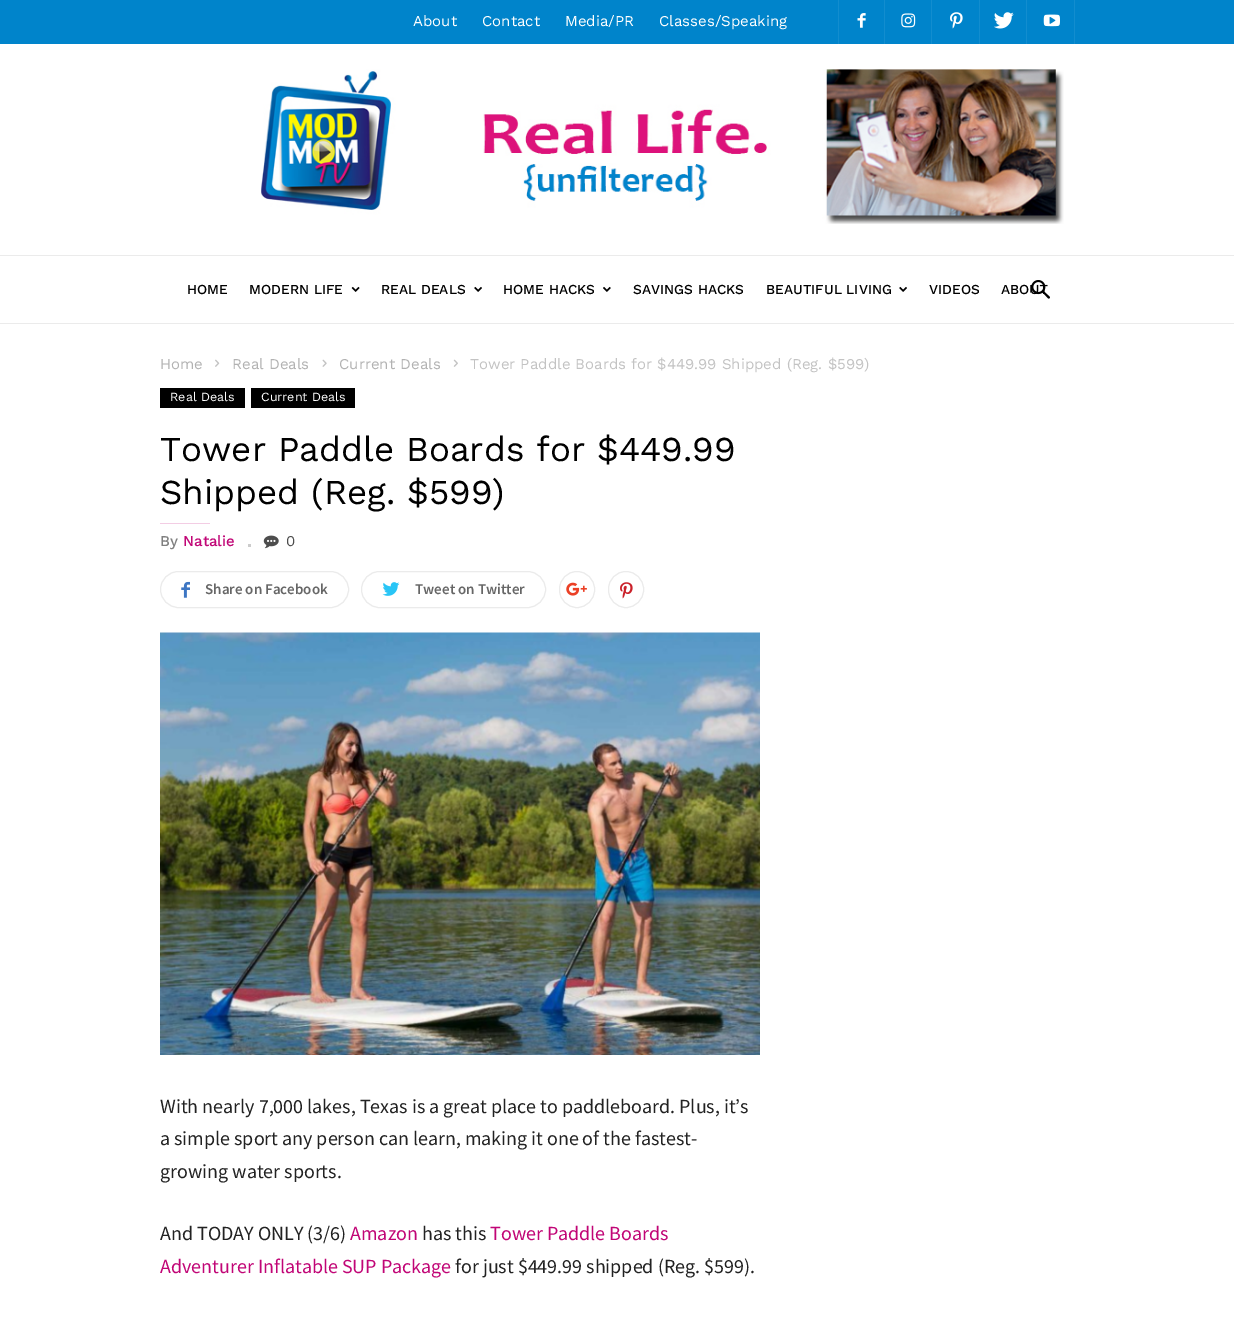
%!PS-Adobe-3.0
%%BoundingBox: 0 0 1234 1320
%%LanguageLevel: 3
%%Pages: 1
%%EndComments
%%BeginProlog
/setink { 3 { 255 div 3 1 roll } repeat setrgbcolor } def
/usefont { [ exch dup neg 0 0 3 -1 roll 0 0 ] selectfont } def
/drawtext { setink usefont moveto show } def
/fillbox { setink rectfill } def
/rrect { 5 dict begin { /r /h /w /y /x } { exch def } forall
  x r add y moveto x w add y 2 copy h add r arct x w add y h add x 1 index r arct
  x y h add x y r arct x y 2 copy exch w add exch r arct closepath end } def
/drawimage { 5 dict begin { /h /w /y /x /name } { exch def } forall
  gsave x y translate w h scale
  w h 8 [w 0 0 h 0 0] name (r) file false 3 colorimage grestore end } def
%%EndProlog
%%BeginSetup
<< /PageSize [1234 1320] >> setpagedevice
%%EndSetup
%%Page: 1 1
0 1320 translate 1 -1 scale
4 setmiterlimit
0 0 1234 1320 255 255 255 fillbox
0 0 1234 44 0 132 203 fillbox
(About) 413 26 /WorkSans-Regular 15 255 255 255 drawtext
(Contact) 482 26 /WorkSans-Regular 15 255 255 255 drawtext
(Media/PR) 565 26 /WorkSans-Regular 15 255 255 255 drawtext
(Classes/Speaking) 659 26 /WorkSans-Regular 15 255 255 255 drawtext
838 0 1 44 18 141 207 fillbox
(assets/img1.rgb) 857 13 9 15 drawimage
884 0 1 44 18 141 207 fillbox
(assets/img2.rgb) 901 13 15 15 drawimage
931 0 1 44 18 141 207 fillbox
(assets/img3.rgb) 950 12 13 17 drawimage
979 0 1 44 18 141 207 fillbox
(assets/img4.rgb) 994 12 20 17 drawimage
1026 0 1 44 18 141 207 fillbox
(assets/img5.rgb) 1043 14 17 13 drawimage
1074 0 1 44 18 141 207 fillbox
(assets/img6.rgb) 261 69 803 155 drawimage
0 255 1234 1 235 235 235 fillbox
(HOME) 187 294 /WorkSans-Medium 13.75 0 0 0 drawtext
(MODERN LIFE) 249 294 /WorkSans-Medium 13.75 0 0 0 drawtext
(assets/img7.rgb) 351 286 9 6 drawimage
(REAL DEALS) 381 294 /WorkSans-Medium 13.75 0 0 0 drawtext
(assets/img8.rgb) 474 286 8 6 drawimage
(HOME HACKS) 503 294 /WorkSans-Medium 13.75 0 0 0 drawtext
(assets/img9.rgb) 603 286 8 6 drawimage
(SAVINGS HACKS) 633 294 /WorkSans-Medium 13.75 0 0 0 drawtext
(BEAUTIFUL LIVING) 766 294 /WorkSans-Medium 13.75 0 0 0 drawtext
(assets/img8.rgb) 899 286 8 6 drawimage
(VIDEOS) 929 294 /WorkSans-Medium 13.75 0 0 0 drawtext
(ABOU) 1001 294 /WorkSans-Medium 13.75 0 0 0 drawtext
(assets/img10.rgb) 1031 280 19 19 drawimage
0 323 1234 1 235 235 235 fillbox
(Home) 160 369 /WorkSans-Regular 15 178 178 178 drawtext
(assets/img11.rgb) 215 359 5 8 drawimage
(Real Deals) 232 369 /WorkSans-Regular 15 178 178 178 drawtext
(assets/img12.rgb) 322 359 5 8 drawimage
(Current Deals) 339 369 /WorkSans-Regular 15 178 178 178 drawtext
(assets/img13.rgb) 453 359 5 8 drawimage
(Tower Paddle Boards for $449.99 Shipped \(Reg. $599\)) 470 369 /WorkSans-Regular 15 195 195 195 drawtext
160 388 85 20 0 0 0 fillbox
(Real Deals) 170 401 /WorkSans-Regular 12.5 255 255 255 drawtext
251 388 104 20 0 0 0 fillbox
(Current Deals) 261 401 /WorkSans-Regular 12.5 255 255 255 drawtext
(Tower Paddle Boards for $449.99) 160 461 /WorkSans-Regular 35 0 0 0 drawtext
(Shipped \(Reg. $599\)) 160 504 /WorkSans-Regular 35 0 0 0 drawtext
160 523 50 1 243 205 228 fillbox
(By) 160 546 /WorkSans-Medium 15 128 128 128 drawtext
(Natalie) 183 546 /WorkSans-Medium 15 193 5 118 drawtext
248 544 3 3 204 204 204 fillbox
(assets/img14.rgb) 263 535 16 14 drawimage
(0) 286 546 /WorkSans-Regular 15 77 77 77 drawtext
235 235 235 setink
160.5 571.5 188 36 18 rrect stroke
(assets/img15.rgb) 181 581 9 17 drawimage
(Share on Facebook) 205 594 /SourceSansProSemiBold-SemiBold 15 102 102 102 drawtext
235 235 235 setink
361.5 571.5 184 36 18 rrect stroke
(assets/img16.rgb) 382 582 18 14 drawimage
(Tweet on Twitter) 415 594 /SourceSansProSemiBold-SemiBold 15 102 102 102 drawtext
235 235 235 setink
559.5 571.5 35 36 17.5 rrect stroke
(assets/img17.rgb) 566 582 21 14 drawimage
608.5 571.5 35 36 17.5 rrect stroke
(assets/img18.rgb) 620 582 13 17 drawimage
(assets/img19.rgb) 160 632 600 423 drawimage
(With nearly 7,000 lakes, Texas is a great place to paddleboard. Plus, it’s) 160 1113 /SourceSansPro-Regular 20 34 34 34 drawtext
(a simple sport any person can learn, making it one of the fastest-) 160 1145 /SourceSansPro-Regular 20 34 34 34 drawtext
(growing water sports.) 160 1178 /SourceSansPro-Regular 20 34 34 34 drawtext
(And TODAY ONLY \(3/6\)) 160 1240 /SourceSansPro-Regular 20 34 34 34 drawtext
(Amazon) 350 1240 /SourceSansPro-Regular 20 193 5 118 drawtext
(has this) 422 1240 /SourceSansPro-Regular 20 34 34 34 drawtext
(Tower Paddle Boards) 490 1240 /SourceSansPro-Regular 20 193 5 118 drawtext
(Adventurer Inflatable SUP Package) 160 1273 /SourceSansPro-Regular 20 193 5 118 drawtext
(for just $449.99 shipped \(Reg. $599\).) 455 1273 /SourceSansPro-Regular 20 34 34 34 drawtext
showpage
%%EOF
